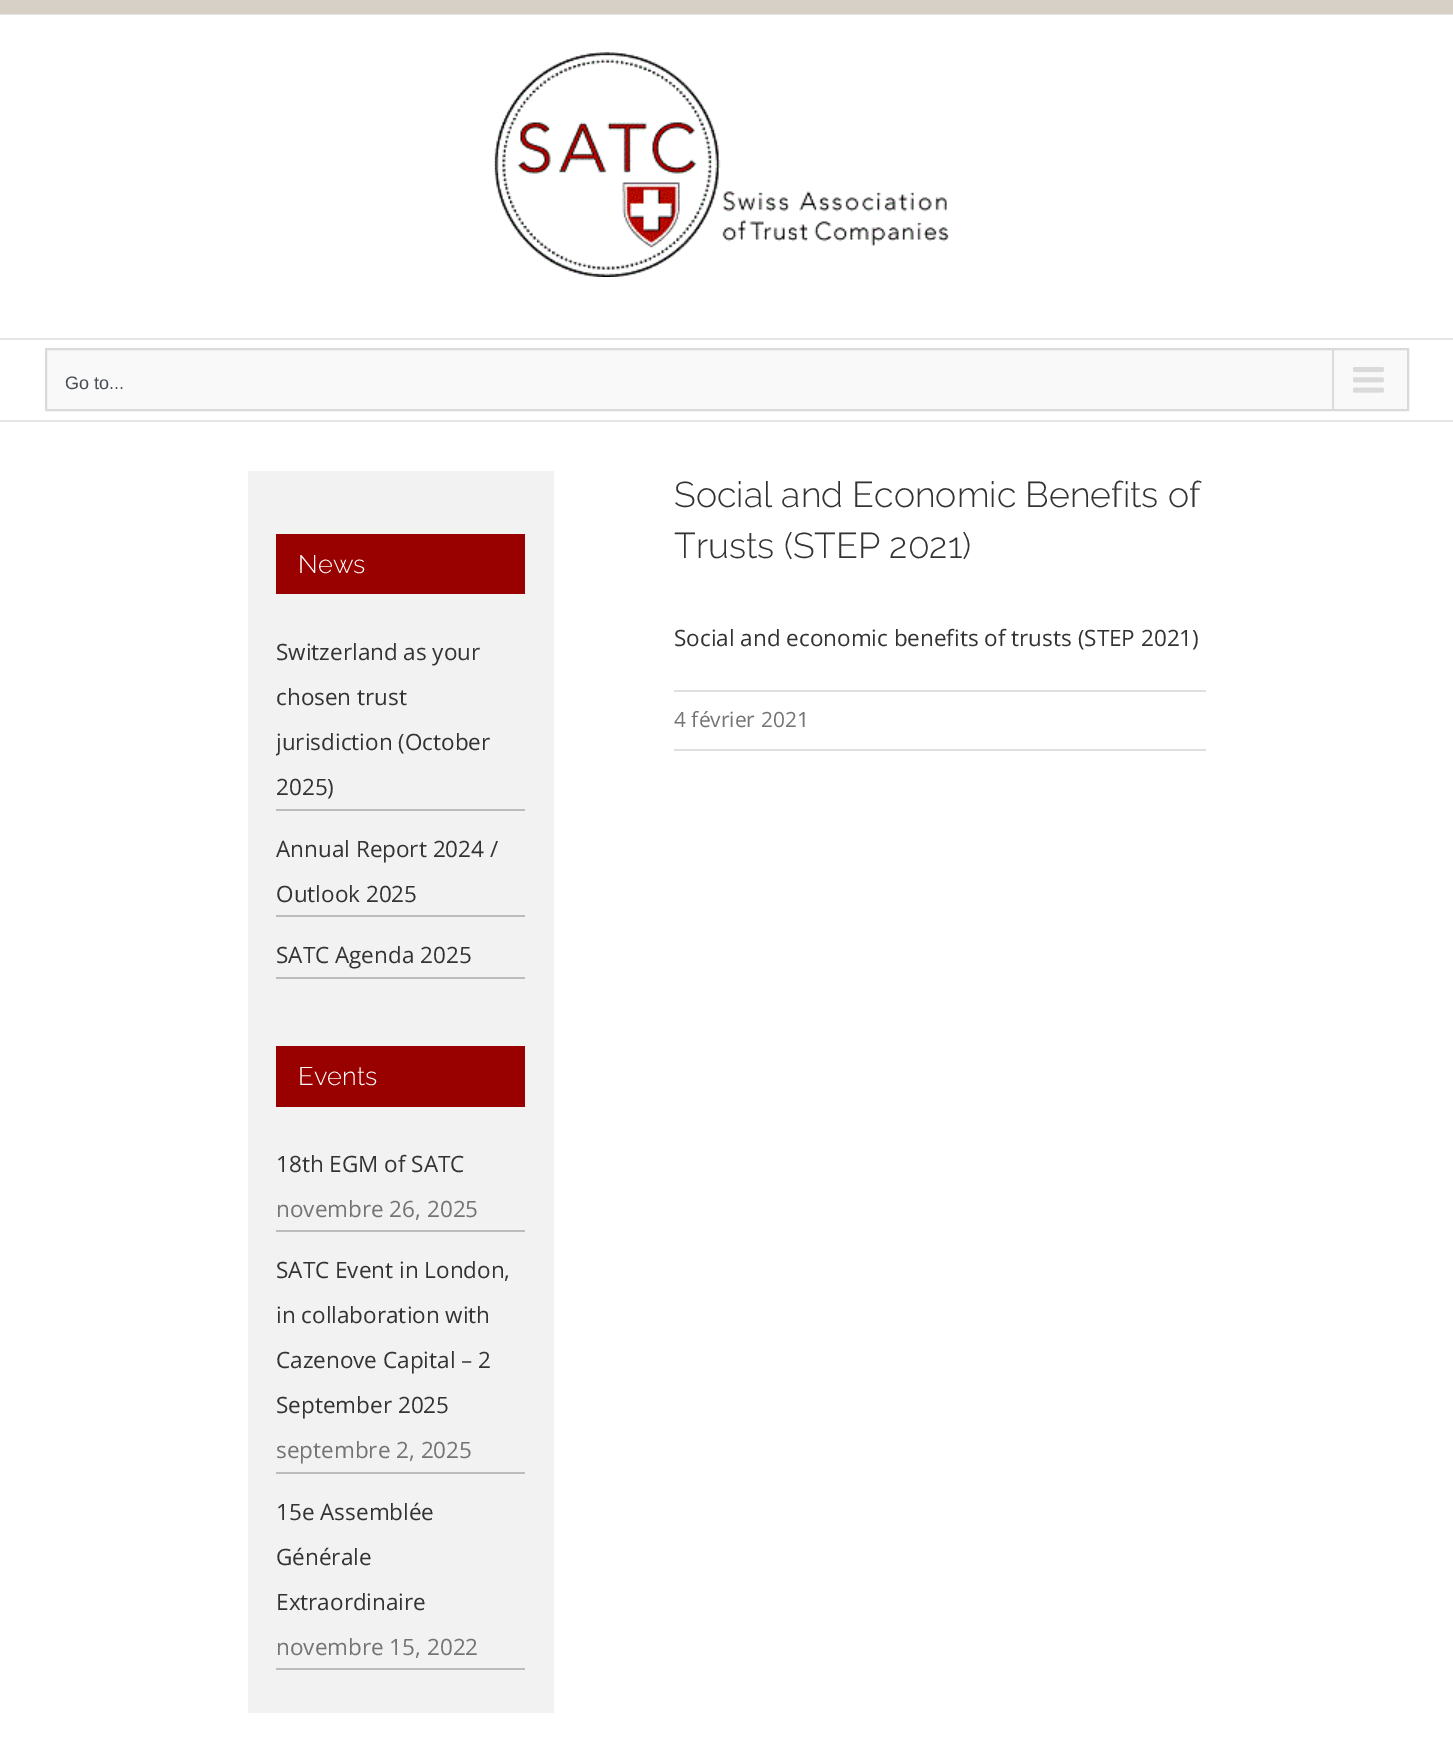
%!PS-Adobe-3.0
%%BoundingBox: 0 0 1453 1743
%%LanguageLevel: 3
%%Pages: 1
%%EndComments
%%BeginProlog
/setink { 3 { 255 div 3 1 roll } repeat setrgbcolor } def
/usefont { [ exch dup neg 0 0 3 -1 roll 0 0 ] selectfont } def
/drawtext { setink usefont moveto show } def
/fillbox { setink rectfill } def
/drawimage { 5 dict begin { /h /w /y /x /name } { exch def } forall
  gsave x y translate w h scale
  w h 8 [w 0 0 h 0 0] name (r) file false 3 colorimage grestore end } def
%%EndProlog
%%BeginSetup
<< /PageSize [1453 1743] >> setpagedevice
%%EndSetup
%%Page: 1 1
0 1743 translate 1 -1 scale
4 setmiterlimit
0 0 1453 1743 255 255 255 fillbox
0 0 1453 14 214 208 199 fillbox
0 14 1453 1 229 229 229 fillbox
0 338 1453 2 229 229 229 fillbox
(assets/img1.rgb) 494 52 455 225 drawimage
0 420 1453 2 229 229 229 fillbox
249 249 249 setink
46 349 moveto 1408 349 lineto 1408 410 lineto 46 410 lineto closepath gsave fill grestore
218 218 218 setink
2 setlinewidth
stroke
(Go to...) 65 389 /LiberationSans-Regular 18 74 78 87 drawtext
1332 350 2 60 218 218 218 fillbox
(assets/img2.rgb) 1353 367 31 26 drawimage
248 471 306 1242 242 242 242 fillbox
276 534 249 60 153 0 0 fillbox
(News) 298 573 /Raleway-Light 25.5 255 255 255 drawtext
276 809 249 2 188 188 188 fillbox
(Switzerland as your) 276 660 /OpenSans-Regular 22.5 51 51 51 drawtext
(chosen trust) 276 705 /OpenSans-Regular 22.5 51 51 51 drawtext
gsave
276 629 249 180 rectclip
(jurisdiction \(October) 276 750 /OpenSans-Regular 22.5 51 51 51 drawtext
grestore
(2025\)) 276 795 /OpenSans-Regular 22.5 51 51 51 drawtext
276 915 249 2 188 188 188 fillbox
(Annual Report 2024 /) 276 857 /OpenSans-Regular 22.5 51 51 51 drawtext
(Outlook 2025) 276 902 /OpenSans-Regular 22.5 51 51 51 drawtext
276 977 249 2 188 188 188 fillbox
(SATC Agenda 2025) 276 963 /OpenSans-Regular 22.5 51 51 51 drawtext
276 1046 249 61 153 0 0 fillbox
(Events) 298 1085 /Raleway-Light 25.5 255 255 255 drawtext
276 1230 249 2 188 188 188 fillbox
(18th EGM of SATC) 276 1172 /OpenSans-Regular 22.5 51 51 51 drawtext
(novembre 26, 2025) 276 1217 /OpenSans-Regular 22.5 116 116 116 drawtext
276 1472 249 2 188 188 188 fillbox
(SATC Event in London,) 276 1278 /OpenSans-Regular 22.5 51 51 51 drawtext
(in collaboration with) 276 1323 /OpenSans-Regular 22.5 51 51 51 drawtext
(Cazenove Capital – 2) 276 1368 /OpenSans-Regular 22.5 51 51 51 drawtext
(September 2025) 276 1413 /OpenSans-Regular 22.5 51 51 51 drawtext
(septembre 2, 2025) 276 1458 /OpenSans-Regular 22.5 116 116 116 drawtext
276 1668 249 2 188 188 188 fillbox
(15e Assemblée) 276 1520 /OpenSans-Regular 22.5 51 51 51 drawtext
(Générale) 276 1565 /OpenSans-Regular 22.5 51 51 51 drawtext
(Extraordinaire) 276 1610 /OpenSans-Regular 22.5 51 51 51 drawtext
(novembre 15, 2022) 276 1655 /OpenSans-Regular 22.5 116 116 116 drawtext
(Social and Economic Benefits of) 674 507 /Raleway-Light 35.75 51 51 51 drawtext
(Trusts \(STEP 2021\)) 674 558 /Raleway-Light 35.75 51 51 51 drawtext
(Social and economic benefits of trusts \(STEP 2021\)) 674 646 /OpenSans-Regular 22.5 51 51 51 drawtext
674 690 532 2 224 222 222 fillbox
674 749 532 2 224 222 222 fillbox
(4 février 2021) 674 727 /OpenSans-Regular 21 116 116 116 drawtext
showpage
%%EOF
